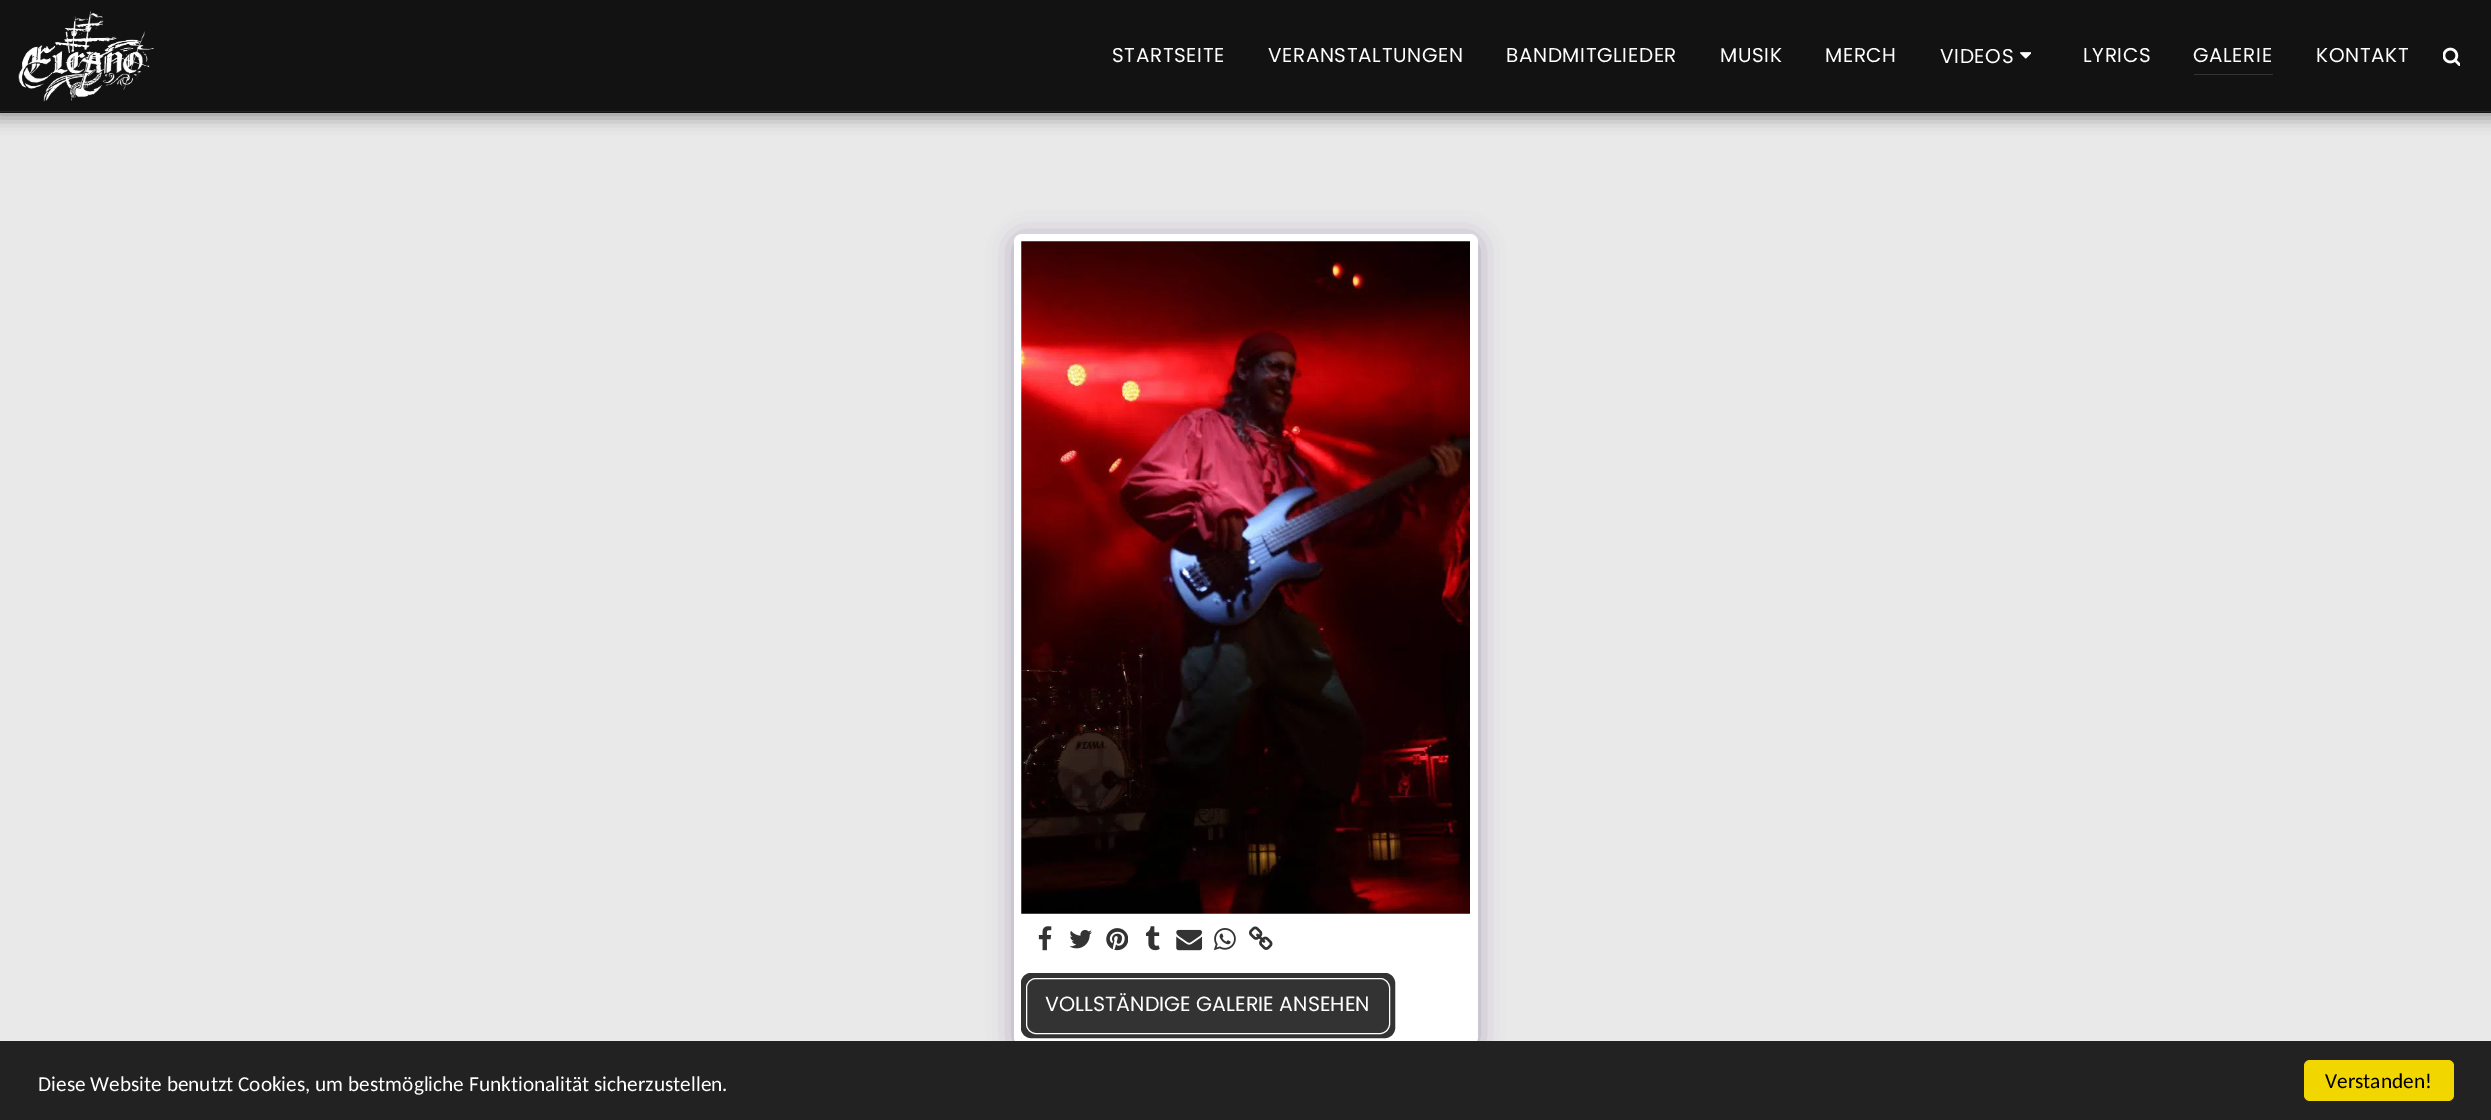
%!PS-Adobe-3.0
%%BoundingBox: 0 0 2491 1120
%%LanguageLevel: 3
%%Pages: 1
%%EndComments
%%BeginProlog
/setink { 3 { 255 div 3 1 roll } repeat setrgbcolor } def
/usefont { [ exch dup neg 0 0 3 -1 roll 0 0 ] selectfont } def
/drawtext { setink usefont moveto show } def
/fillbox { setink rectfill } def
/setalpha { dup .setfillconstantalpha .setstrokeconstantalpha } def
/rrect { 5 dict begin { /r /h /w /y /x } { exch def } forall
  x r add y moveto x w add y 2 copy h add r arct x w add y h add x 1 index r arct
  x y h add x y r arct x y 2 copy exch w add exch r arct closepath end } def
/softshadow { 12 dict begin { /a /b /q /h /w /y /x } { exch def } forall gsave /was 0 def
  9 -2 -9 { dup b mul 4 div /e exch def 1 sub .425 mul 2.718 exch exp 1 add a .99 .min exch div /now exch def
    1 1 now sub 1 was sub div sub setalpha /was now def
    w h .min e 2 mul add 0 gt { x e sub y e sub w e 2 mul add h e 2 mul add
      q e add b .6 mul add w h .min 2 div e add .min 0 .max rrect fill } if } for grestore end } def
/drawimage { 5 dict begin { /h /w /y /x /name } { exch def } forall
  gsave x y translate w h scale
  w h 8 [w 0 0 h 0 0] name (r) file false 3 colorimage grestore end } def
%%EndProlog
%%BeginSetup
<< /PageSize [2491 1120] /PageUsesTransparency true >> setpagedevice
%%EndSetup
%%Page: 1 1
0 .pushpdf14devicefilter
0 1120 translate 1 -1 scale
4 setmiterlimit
0 0 2491 1120 233 233 233 fillbox
0 0 0 setink
-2 0 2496 118 0 7.5 0.35 softshadow
0 0 2491 113 18 18 18 fillbox
0 111 2491 1 37 37 37 fillbox
(assets/img1.rgb) 18 11 136 91 drawimage
/Poppins-Regular 20 usefont
255 255 255 setink
1112 62 moveto 0.6 0 (STARTSEITE) ashow
1268 62 moveto 0.6 0 (VERANSTALTUNGEN) ashow
1506 62 moveto 0.6 0 (BANDMITGLIEDER) ashow
1720 62 moveto 0.6 0 (MUSIK) ashow
1825 62 moveto 0.6 0 (MERCH) ashow
1940 63 moveto 0.6 0 (VIDEOS) ashow
(assets/img2.rgb) 2020 52 11 7 drawimage
2083 62 moveto 0.6 0 (LYRICS) ashow
2193 62 moveto 0.6 0 (GALERIE) ashow
2194 74 79 1 51 51 51 fillbox
255 255 255 setink
2316 62 moveto 0.6 0 (KONTAKT) ashow
(assets/img3.rgb) 2443 47 17 19 drawimage
77 63 122 setink
1014 238 464 811 8 12.5 0.4 softshadow
255 255 255 setink
1014 234 464 811 8 rrect fill
(assets/img4.rgb) 1021 241 449 673 drawimage
(assets/img5.rgb) 1038 926 14 25 drawimage
(assets/img6.rgb) 1069 929 23 20 drawimage
(assets/img7.rgb) 1106 928 22 23 drawimage
(assets/img8.rgb) 1145 926 15 25 drawimage
(assets/img9.rgb) 1176 929 27 22 drawimage
(assets/img10.rgb) 1214 928 22 23 drawimage
(assets/img11.rgb) 1249 926 24 24 drawimage
51 51 51 setink
1021.5 973.5 373 64 9.5 rrect gsave fill grestore
stroke
255 255 255 setink
1026.5 978.5 363 55 9.5 rrect stroke
(VOLLSTÄNDIGE GALERIE ANSEHEN) 1045 1011 /Poppins-Regular 20.6 255 255 255 drawtext
0 1041 2491 79 34 34 34 fillbox
(Diese Website benutzt Cookies, um bestmögliche Funktionalität sicherzustellen.) 38 1091 /Carlito-Regular 21.25 255 255 255 drawtext
241 214 0 setink
2304 1060 150 41 6 rrect fill
(Verstanden!) 2325 1088 /Carlito-Regular 21.25 0 0 0 drawtext
.poppdf14devicefilter showpage
%%EOF
